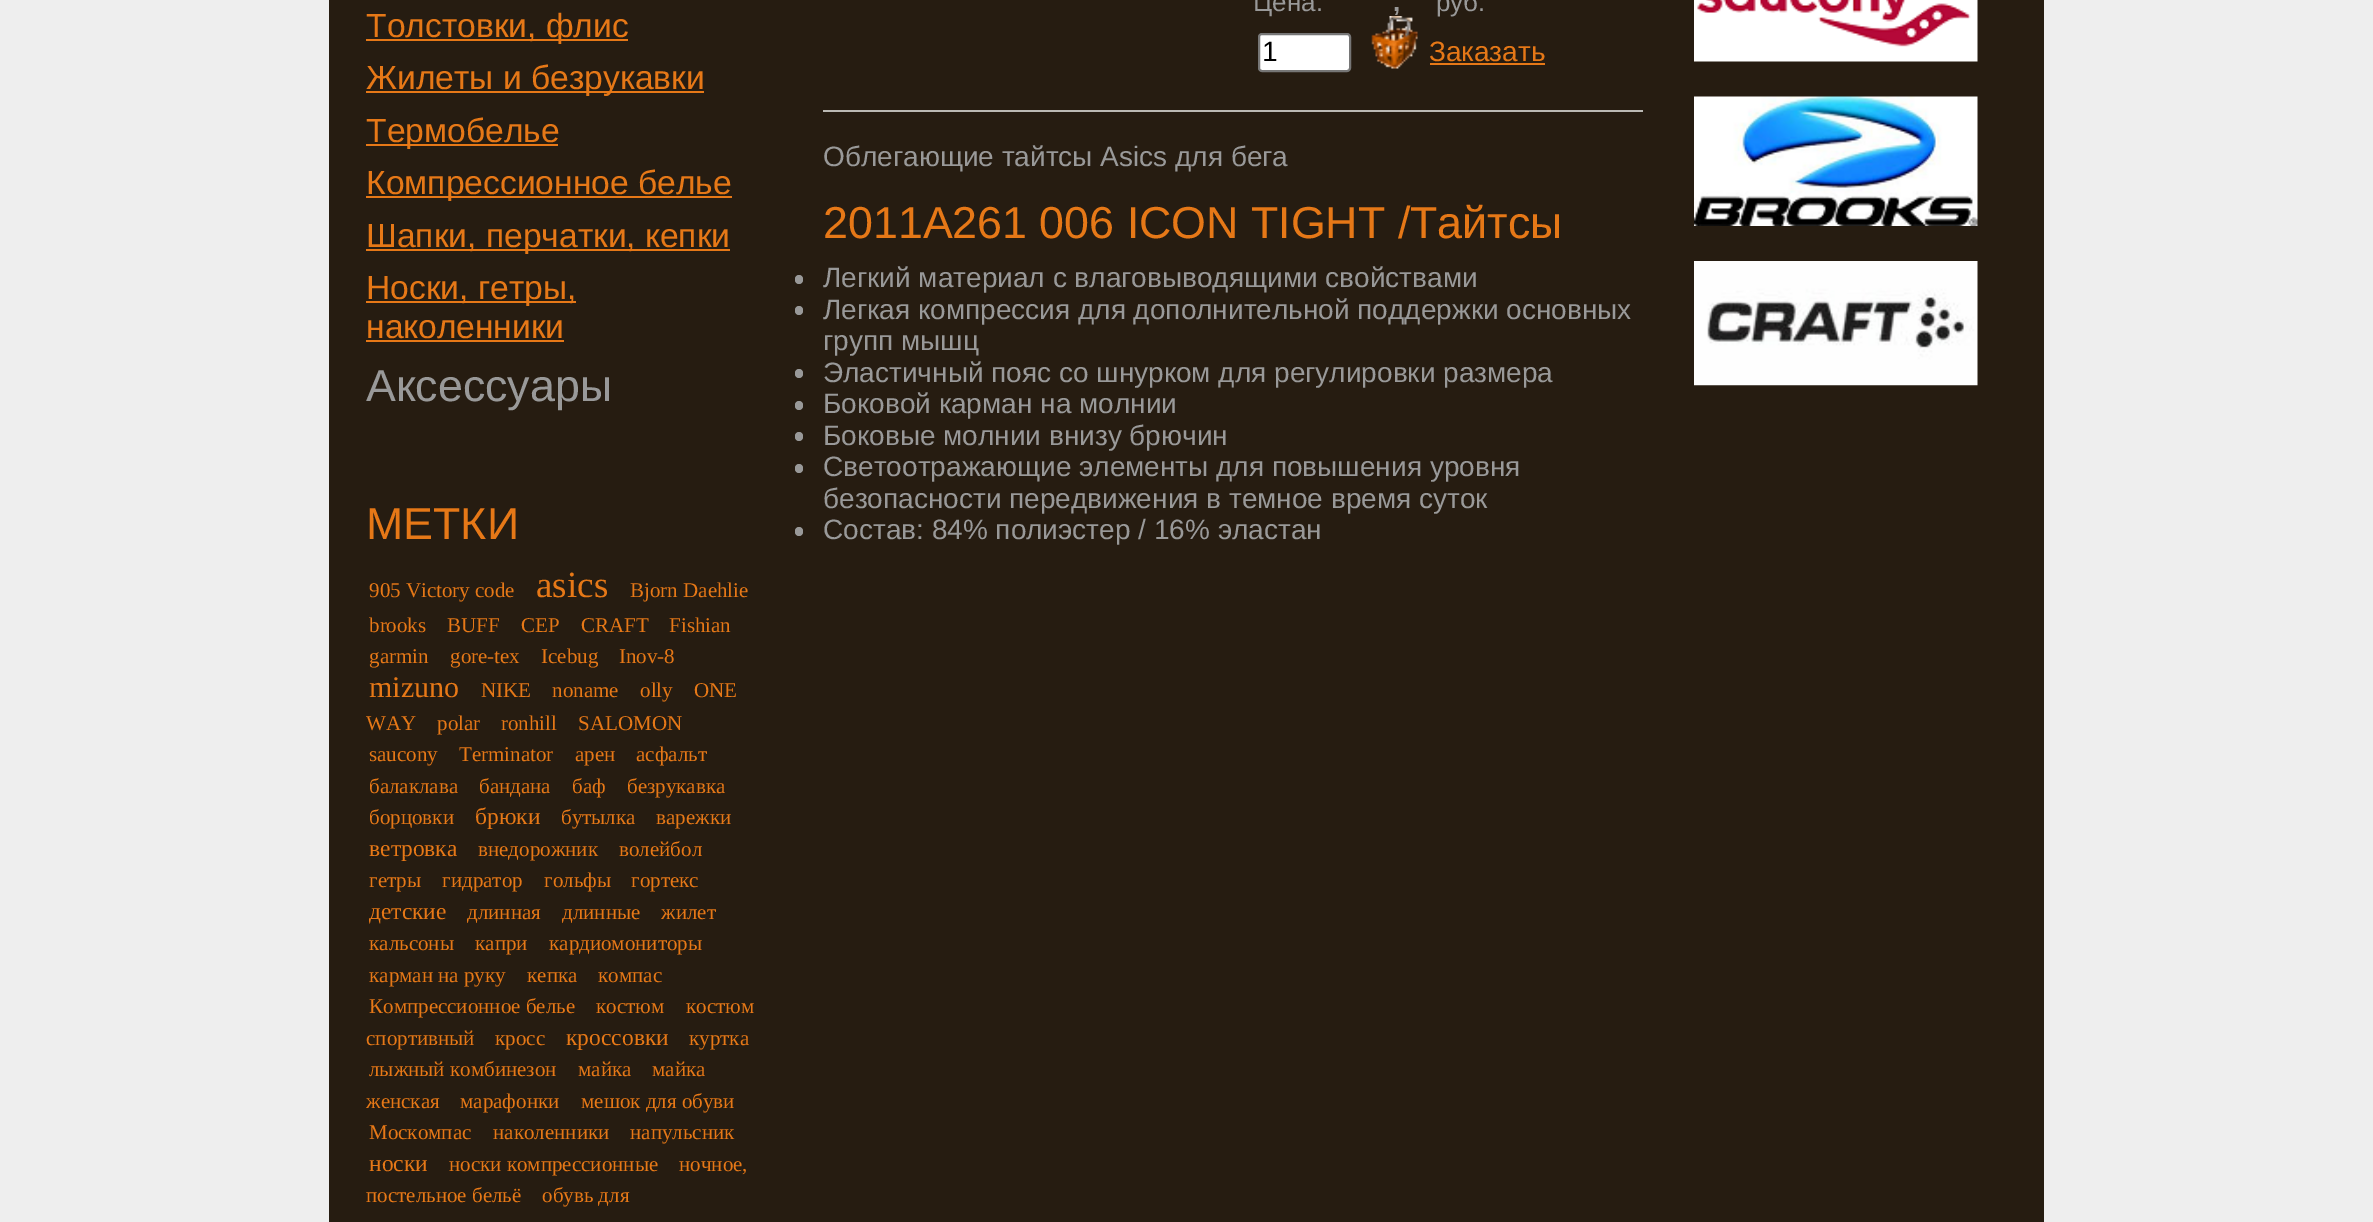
%!PS-Adobe-3.0
%%BoundingBox: 0 0 2373 1222
%%LanguageLevel: 3
%%Pages: 1
%%EndComments
%%BeginProlog
/setink { 3 { 255 div 3 1 roll } repeat setrgbcolor } def
/usefont { [ exch dup neg 0 0 3 -1 roll 0 0 ] selectfont } def
/drawtext { setink usefont moveto show } def
/fillbox { setink rectfill } def
/rrect { 5 dict begin { /r /h /w /y /x } { exch def } forall
  x r add y moveto x w add y 2 copy h add r arct x w add y h add x 1 index r arct
  x y h add x y r arct x y 2 copy exch w add exch r arct closepath end } def
/drawimage { 5 dict begin { /h /w /y /x /name } { exch def } forall
  gsave x y translate w h scale
  w h 8 [w 0 0 h 0 0] name (r) file false 3 colorimage grestore end } def
%%EndProlog
%%BeginSetup
<< /PageSize [2373 1222] >> setpagedevice
%%EndSetup
%%Page: 1 1
0 1222 translate 1 -1 scale
4 setmiterlimit
0 0 2373 1222 238 238 238 fillbox
329 0 1715 1222 38 28 17 fillbox
366 39 262 2 230 120 23 fillbox
(Толстовки, флис) 366 37 /LiberationSans-Regular 33.6 230 120 23 drawtext
366 91 338 2 230 120 23 fillbox
(Жилеты и безрукавки) 366 89 /LiberationSans-Regular 33.6 230 120 23 drawtext
366 144 192 2 230 120 23 fillbox
(Термобелье) 366 142 /LiberationSans-Regular 33.6 230 120 23 drawtext
366 196 366 2 230 120 23 fillbox
(Компрессионное белье) 366 194 /LiberationSans-Regular 33.6 230 120 23 drawtext
366 249 364 2 230 120 23 fillbox
(Шапки, перчатки, кепки) 366 247 /LiberationSans-Regular 33.6 230 120 23 drawtext
366 301 210 2 230 120 23 fillbox
(Носки, гетры,) 366 299 /LiberationSans-Regular 33.6 230 120 23 drawtext
(наколенники) 366 338 /LiberationSans-Regular 33.6 230 120 23 drawtext
366 340 198 2 230 120 23 fillbox
(Аксессуары) 366 401 /LiberationSans-Regular 44.75 153 153 153 drawtext
(МЕТКИ) 366 539 /LiberationSans-Regular 44.75 230 120 23 drawtext
(905 Victory code) 369 597 /LiberationSerif-Regular 21 230 120 23 drawtext
(asics) 536 597 /LiberationSerif-Regular 37 230 120 23 drawtext
(Bjorn Daehlie) 630 597 /LiberationSerif-Regular 21 230 120 23 drawtext
(brooks) 369 632 /LiberationSerif-Regular 21 230 120 23 drawtext
(BUFF) 447 632 /LiberationSerif-Regular 21 230 120 23 drawtext
(CEP) 521 632 /LiberationSerif-Regular 21 230 120 23 drawtext
(CRAFT) 581 632 /LiberationSerif-Regular 21 230 120 23 drawtext
(Fishian) 669 632 /LiberationSerif-Regular 21 230 120 23 drawtext
(garmin) 369 663 /LiberationSerif-Regular 21 230 120 23 drawtext
(gore-tex) 450 663 /LiberationSerif-Regular 21 230 120 23 drawtext
(Icebug) 541 663 /LiberationSerif-Regular 21 230 120 23 drawtext
(Inov-8) 619 663 /LiberationSerif-Regular 21 230 120 23 drawtext
(mizuno) 369 697 /LiberationSerif-Regular 30 230 120 23 drawtext
(NIKE) 481 697 /LiberationSerif-Regular 21 230 120 23 drawtext
(noname) 552 697 /LiberationSerif-Regular 21 230 120 23 drawtext
(olly) 640 697 /LiberationSerif-Regular 21 230 120 23 drawtext
(ONE) 694 697 /LiberationSerif-Regular 21 230 120 23 drawtext
(WAY) 366 730 /LiberationSerif-Regular 21 230 120 23 drawtext
(polar) 437 730 /LiberationSerif-Regular 21 230 120 23 drawtext
(ronhill) 501 730 /LiberationSerif-Regular 21 230 120 23 drawtext
(SALOMON) 578 730 /LiberationSerif-Regular 21 230 120 23 drawtext
(saucony) 369 761 /LiberationSerif-Regular 21 230 120 23 drawtext
(Terminator) 459 761 /LiberationSerif-Regular 21 230 120 23 drawtext
(арен) 575 761 /LiberationSerif-Regular 21 230 120 23 drawtext
(асфальт) 636 761 /LiberationSerif-Regular 21 230 120 23 drawtext
(балаклава) 369 793 /LiberationSerif-Regular 21 230 120 23 drawtext
(бандана) 479 793 /LiberationSerif-Regular 21 230 120 23 drawtext
(баф) 572 793 /LiberationSerif-Regular 21 230 120 23 drawtext
(безрукавка) 627 793 /LiberationSerif-Regular 21 230 120 23 drawtext
(борцовки) 369 824 /LiberationSerif-Regular 21 230 120 23 drawtext
(брюки) 475 824 /LiberationSerif-Regular 23.5 230 120 23 drawtext
(бутылка) 561 824 /LiberationSerif-Regular 21 230 120 23 drawtext
(варежки) 656 824 /LiberationSerif-Regular 21 230 120 23 drawtext
(ветровка) 369 856 /LiberationSerif-Regular 23.5 230 120 23 drawtext
(внедорожник) 478 856 /LiberationSerif-Regular 21 230 120 23 drawtext
(волейбол) 619 856 /LiberationSerif-Regular 21 230 120 23 drawtext
(гетры) 369 887 /LiberationSerif-Regular 21 230 120 23 drawtext
(гидратор) 442 887 /LiberationSerif-Regular 21 230 120 23 drawtext
(гольфы) 544 887 /LiberationSerif-Regular 21 230 120 23 drawtext
(гортекс) 631 887 /LiberationSerif-Regular 21 230 120 23 drawtext
(детские) 369 919 /LiberationSerif-Regular 23.5 230 120 23 drawtext
(длинная) 467 919 /LiberationSerif-Regular 21 230 120 23 drawtext
(длинные) 562 919 /LiberationSerif-Regular 21 230 120 23 drawtext
(жилет) 661 919 /LiberationSerif-Regular 21 230 120 23 drawtext
(кальсоны) 369 950 /LiberationSerif-Regular 21 230 120 23 drawtext
(капри) 475 950 /LiberationSerif-Regular 21 230 120 23 drawtext
(кардиомониторы) 549 950 /LiberationSerif-Regular 21 230 120 23 drawtext
(карман на руку) 369 982 /LiberationSerif-Regular 21 230 120 23 drawtext
(кепка) 527 982 /LiberationSerif-Regular 21 230 120 23 drawtext
(компас) 598 982 /LiberationSerif-Regular 21 230 120 23 drawtext
(Компрессионное белье) 369 1013 /LiberationSerif-Regular 21 230 120 23 drawtext
(костюм) 596 1013 /LiberationSerif-Regular 21 230 120 23 drawtext
(костюм) 686 1013 /LiberationSerif-Regular 21 230 120 23 drawtext
(спортивный) 366 1045 /LiberationSerif-Regular 21 230 120 23 drawtext
(кросс) 495 1045 /LiberationSerif-Regular 21 230 120 23 drawtext
(кроссовки) 566 1045 /LiberationSerif-Regular 23.5 230 120 23 drawtext
(куртка) 689 1045 /LiberationSerif-Regular 21 230 120 23 drawtext
(лыжный комбинезон) 369 1076 /LiberationSerif-Regular 21 230 120 23 drawtext
(майка) 578 1076 /LiberationSerif-Regular 21 230 120 23 drawtext
(майка) 652 1076 /LiberationSerif-Regular 21 230 120 23 drawtext
(женская) 366 1108 /LiberationSerif-Regular 21 230 120 23 drawtext
(марафонки) 460 1108 /LiberationSerif-Regular 21 230 120 23 drawtext
(мешок для обуви) 581 1108 /LiberationSerif-Regular 21 230 120 23 drawtext
(Москомпас) 369 1139 /LiberationSerif-Regular 21 230 120 23 drawtext
(наколенники) 493 1139 /LiberationSerif-Regular 21 230 120 23 drawtext
(напульсник) 630 1139 /LiberationSerif-Regular 21 230 120 23 drawtext
(носки) 369 1171 /LiberationSerif-Regular 23.5 230 120 23 drawtext
(носки компрессионные) 449 1171 /LiberationSerif-Regular 21 230 120 23 drawtext
(ночное,) 679 1171 /LiberationSerif-Regular 21 230 120 23 drawtext
(постельное бельё) 366 1202 /LiberationSerif-Regular 21 230 120 23 drawtext
(обувь для) 542 1202 /LiberationSerif-Regular 21 230 120 23 drawtext
823 110 820 2 187 185 180 fillbox
(Цена:) 1253 11 /LiberationSans-Regular 26 153 153 153 drawtext
(,) 1393 11 /LiberationSans-Bold 26 153 153 153 drawtext
(руб.) 1436 11 /LiberationSans-Regular 26 153 153 153 drawtext
255 255 255 setink
1259 34 91 37 3 rrect gsave fill grestore
118 118 118 setink
2 setlinewidth
stroke
(1) 1262 61 /LiberationSans-Regular 28 0 0 0 drawtext
(assets/img1.rgb) 1371 16 47 53 drawimage
(Заказать) 1429 61 /LiberationSans-Regular 28 230 120 23 drawtext
1430 63 115 2 230 120 23 fillbox
(Облегающие тайтсы Asics для бега) 823 166 /LiberationSans-Regular 28 153 153 153 drawtext
(2011A261 006 ICON TIGHT /Тайтсы) 823 238 /LiberationSans-Regular 44.75 230 120 23 drawtext
153 153 153 setink
795 275 8 9 4 rrect fill
(Легкий материал с влаговыводящими свойствами) 823 287 /LiberationSans-Regular 28 153 153 153 drawtext
795 306 8 9 4 rrect fill
(Легкая компрессия для дополнительной поддержки основных) 823 319 /LiberationSans-Regular 28 153 153 153 drawtext
(групп мышц) 823 350 /LiberationSans-Regular 28 153 153 153 drawtext
795 369 8 9 4 rrect fill
(Эластичный пояс со шнурком для регулировки размера) 823 382 /LiberationSans-Regular 28 153 153 153 drawtext
795 401 8 9 4 rrect fill
(Боковой карман на молнии) 823 413 /LiberationSans-Regular 28 153 153 153 drawtext
795 432 8 9 4 rrect fill
(Боковые молнии внизу брючин) 823 445 /LiberationSans-Regular 28 153 153 153 drawtext
795 464 8 9 4 rrect fill
(Светоотражающие элементы для повышения уровня) 823 476 /LiberationSans-Regular 28 153 153 153 drawtext
(безопасности передвижения в темное время суток) 823 508 /LiberationSans-Regular 28 153 153 153 drawtext
795 527 8 9 4 rrect fill
(Состав: 84% полиэстер / 16% эластан) 823 539 /LiberationSans-Regular 28 153 153 153 drawtext
(assets/img2.rgb) 1694 0 284 62 drawimage
(assets/img3.rgb) 1694 96 284 130 drawimage
(assets/img4.rgb) 1694 261 284 125 drawimage
showpage
%%EOF
